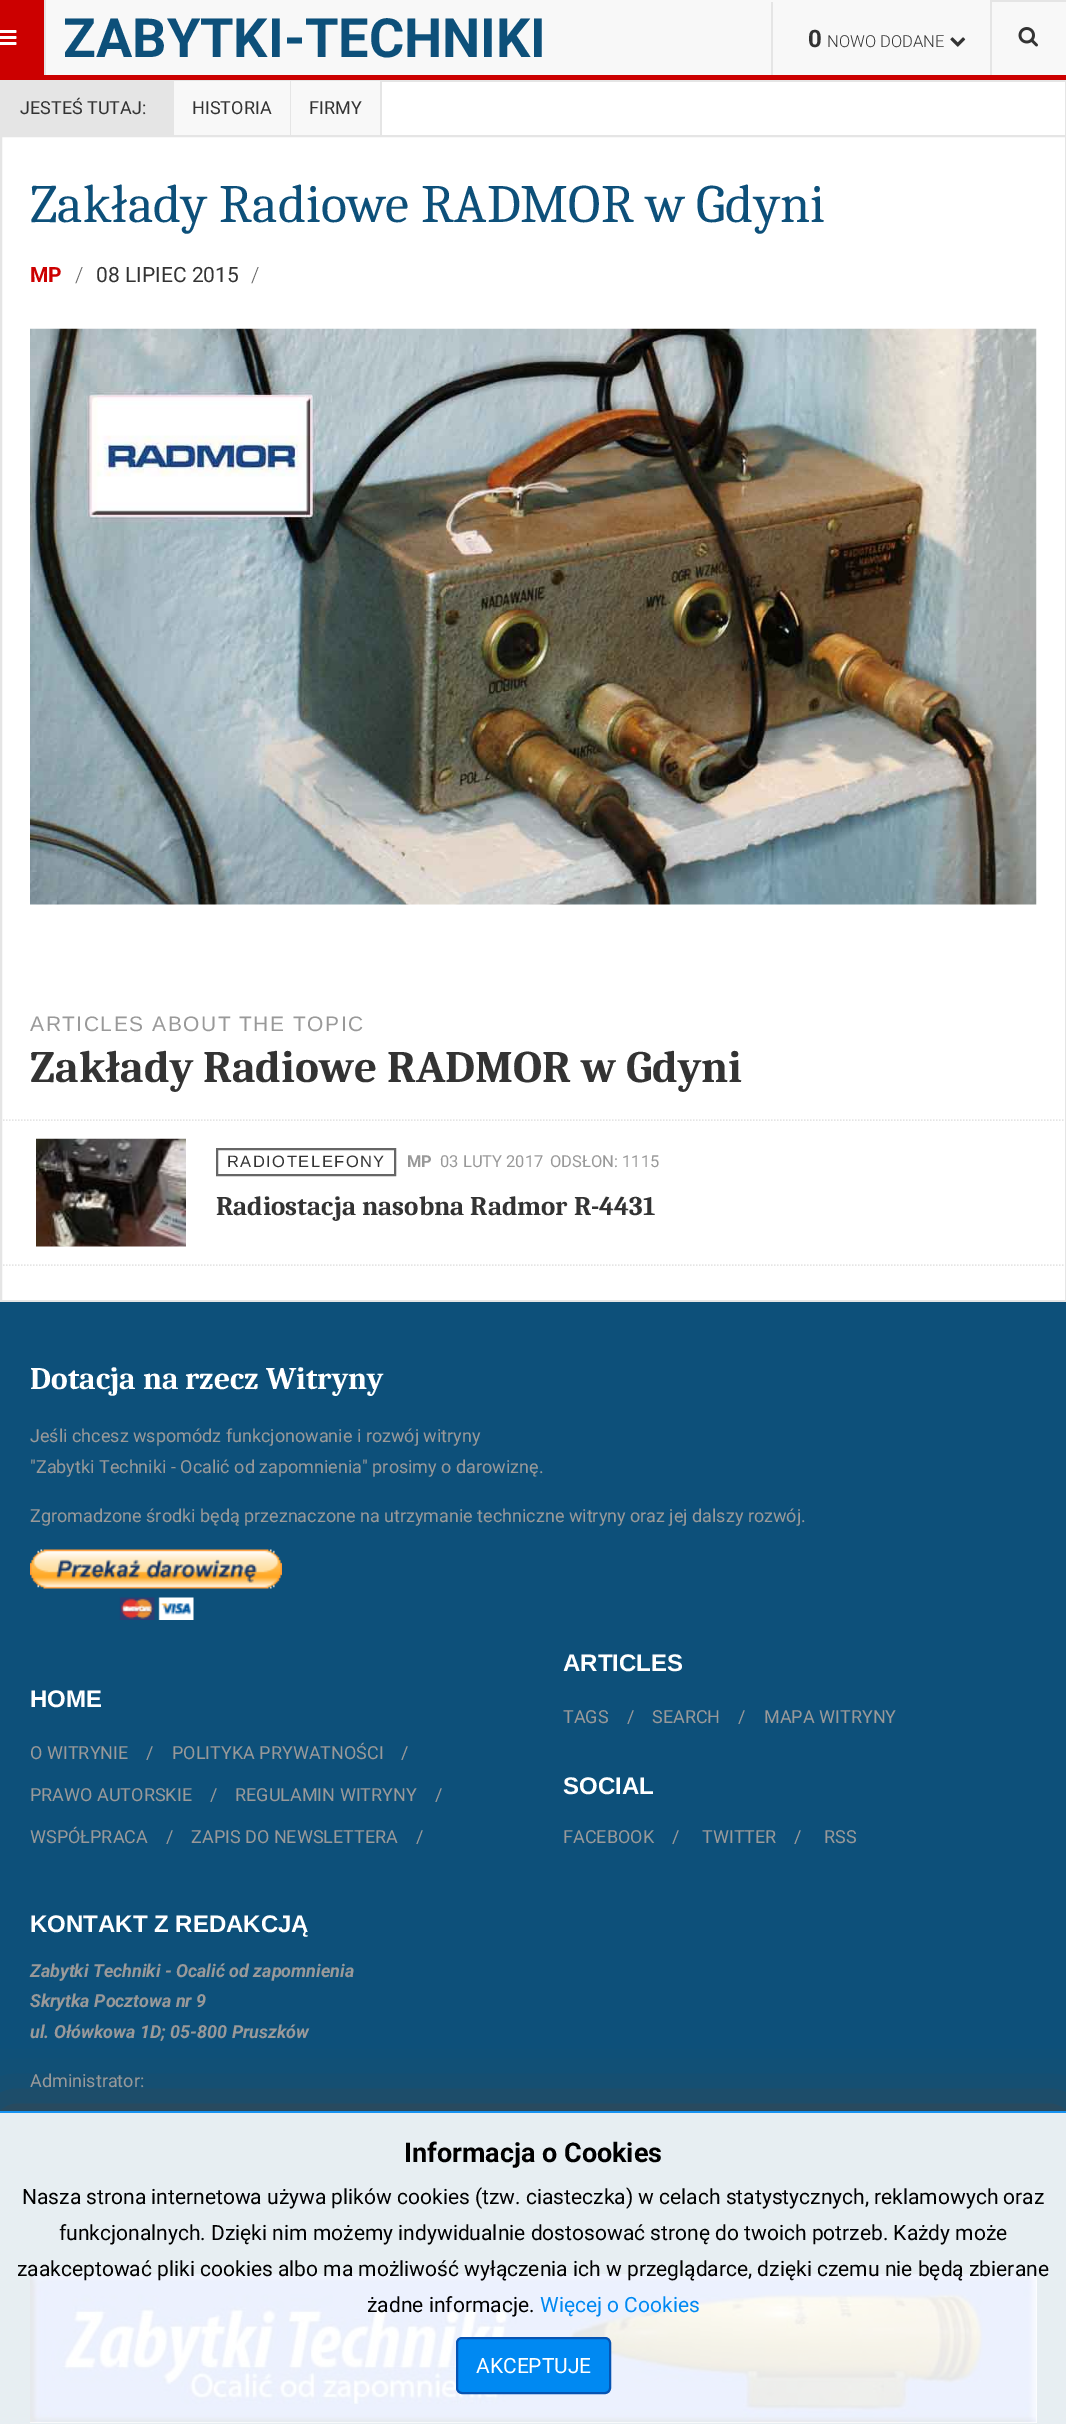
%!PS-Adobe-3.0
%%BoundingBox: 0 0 1066 2424
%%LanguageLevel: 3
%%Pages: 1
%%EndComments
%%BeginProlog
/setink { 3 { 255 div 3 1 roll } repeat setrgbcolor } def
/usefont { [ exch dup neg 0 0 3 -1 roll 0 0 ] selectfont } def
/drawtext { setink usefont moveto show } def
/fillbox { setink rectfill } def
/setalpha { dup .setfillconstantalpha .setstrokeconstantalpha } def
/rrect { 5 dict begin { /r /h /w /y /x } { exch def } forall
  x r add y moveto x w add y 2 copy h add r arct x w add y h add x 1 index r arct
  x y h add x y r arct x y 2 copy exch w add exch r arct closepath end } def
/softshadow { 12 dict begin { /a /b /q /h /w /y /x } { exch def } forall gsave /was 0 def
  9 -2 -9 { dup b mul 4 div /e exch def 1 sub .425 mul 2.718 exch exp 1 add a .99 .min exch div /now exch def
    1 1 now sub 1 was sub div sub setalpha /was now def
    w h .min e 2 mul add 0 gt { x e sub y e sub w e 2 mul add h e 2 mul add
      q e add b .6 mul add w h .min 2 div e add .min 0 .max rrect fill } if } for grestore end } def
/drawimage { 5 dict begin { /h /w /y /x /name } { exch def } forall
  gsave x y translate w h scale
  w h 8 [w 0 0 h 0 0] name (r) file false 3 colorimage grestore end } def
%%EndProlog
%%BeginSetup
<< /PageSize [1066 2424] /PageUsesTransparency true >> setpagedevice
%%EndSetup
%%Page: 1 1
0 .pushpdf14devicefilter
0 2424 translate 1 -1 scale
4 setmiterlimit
0 0 1066 2424 255 255 255 fillbox
46 0 1020 75 248 248 248 fillbox
0 75 1066 5 204 0 0 fillbox
0 0 44 75 204 0 0 fillbox
44 0 2 75 229 229 229 fillbox
(assets/img1.rgb) 0 30 17 15 drawimage
(ZABYTKI-TECHNIKI) 63 57 /Roboto-Bold 54 13 80 122 drawtext
771 2 2 73 229 229 229 fillbox
(0) 808 47 /Roboto-Bold 24 51 51 51 drawtext
(NOWO DODANE) 827 47 /Roboto-Light 16.5 51 51 51 drawtext
(assets/img2.rgb) 950 37 16 10 drawimage
992 0 74 2 229 229 229 fillbox
990 0 2 75 229 229 229 fillbox
(assets/img3.rgb) 1018 27 20 20 drawimage
0 80 1066 2 229 229 229 fillbox
1065 80 1 55 229 229 229 fillbox
0 80 2 55 229 229 229 fillbox
2 82 171 53 229 229 229 fillbox
173 81 1 54 229 229 229 fillbox
(JESTEŚ TUTAJ:) 20 114 /Roboto-Regular 18 51 51 51 drawtext
174 81 116 54 248 248 248 fillbox
290 81 1 54 229 229 229 fillbox
(HISTORIA) 192 114 /Roboto-Regular 18 51 51 51 drawtext
291 81 89 54 248 248 248 fillbox
380 81 2 54 229 229 229 fillbox
(FIRMY) 309 114 /Roboto-Regular 18 51 51 51 drawtext
229 229 229 setink
2 setlinewidth
1 136 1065 1165 rectstroke
(Zakłady Radiowe RADMOR w Gdyni) 30 222 /Caladea-Regular 54 13 80 122 drawtext
(MP) 30 282 /Roboto-Bold 21 204 0 0 drawtext
(/) 75 282 /Roboto-Light 21 102 102 102 drawtext
(08 LIPIEC 2015) 96 282 /Roboto-Regular 21 51 51 51 drawtext
(/) 251 282 /Roboto-Light 21 102 102 102 drawtext
(assets/img4.rgb) 30 328 1007 577 drawimage
/LiberationSans-Regular 21 usefont
153 153 153 setink
30 1031 moveto 1.5 0 (ARTICLES ABOUT THE TOPIC) ashow
(Zakłady Radiowe RADMOR w Gdyni) 30 1082 /Caladea-Bold 45 51 51 51 drawtext
229 229 229 setink
1.5 setlinewidth
[1.5 1.5] 0 setdash
0 1120 moveto 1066.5 1120 lineto stroke
0 1265 moveto 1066.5 1265 lineto stroke
(assets/img5.rgb) 36 1138 150 109 drawimage
102 102 102 setink
2 setlinewidth
[] 0 setdash
217 1149 178 26 rectstroke
/LiberationSans-Regular 16.5 usefont
51 51 51 setink
227 1167 moveto 1.5 0 (RADIOTELEFONY) ashow
(MP) 407 1167 /Roboto-Bold 16.5 153 153 153 drawtext
(03 LUTY 2017) 440 1167 /Roboto-Regular 16.5 153 153 153 drawtext
(ODSŁON: 1115) 550 1167 /Roboto-Regular 16.5 153 153 153 drawtext
(Radiostacja nasobna Radmor R-4431) 216 1215 /Caladea-Bold 27 51 51 51 drawtext
0 1302 1066 1122 13 80 122 fillbox
(Dotacja na rzecz Witryny) 30 1389 /Caladea-Bold 31.5 255 255 255 drawtext
(Jeśli chcesz wspomódz funkcjonowanie i rozwój witryny) 30 1442 /Roboto-Regular 18 153 153 153 drawtext
("Zabytki Techniki - Ocalić od zapomnienia" prosimy o darowiznę.) 30 1473 /Roboto-Regular 18 153 153 153 drawtext
(Zgromadzone środki będą przeznaczone na utrzymanie techniczne witryny oraz jej dalszy rozwój.) 30 1522 /Roboto-Regular 18 153 153 153 drawtext
(assets/img6.rgb) 30 1549 252 71 drawimage
(ARTICLES) 563 1671 /LiberationSans-Bold 24 255 255 255 drawtext
(TAGS) 563 1723 /Roboto-Regular 18 153 153 153 drawtext
(/) 627 1723 /Roboto-Regular 18 153 153 153 drawtext
(SEARCH) 652 1723 /Roboto-Regular 18 153 153 153 drawtext
(/) 738 1723 /Roboto-Regular 18 153 153 153 drawtext
(MAPA WITRYNY) 764 1723 /Roboto-Regular 18 153 153 153 drawtext
(SOCIAL) 563 1794 /LiberationSans-Bold 24 255 255 255 drawtext
(FACEBOOK) 563 1843 /Roboto-Regular 18 153 153 153 drawtext
(/) 672 1843 /Roboto-Regular 18 153 153 153 drawtext
(TWITTER) 702 1843 /Roboto-Regular 18 153 153 153 drawtext
(/) 794 1843 /Roboto-Regular 18 153 153 153 drawtext
(RSS) 824 1843 /Roboto-Regular 18 153 153 153 drawtext
(HOME) 30 1707 /LiberationSans-Bold 24 255 255 255 drawtext
(O WITRYNIE) 30 1759 /Roboto-Regular 18 153 153 153 drawtext
(/) 146 1759 /Roboto-Regular 18 153 153 153 drawtext
(POLITYKA PRYWATNOŚCI) 172 1759 /Roboto-Regular 18 153 153 153 drawtext
(/) 401 1759 /Roboto-Regular 18 153 153 153 drawtext
(PRAWO AUTORSKIE) 30 1801 /Roboto-Regular 18 153 153 153 drawtext
(/) 210 1801 /Roboto-Regular 18 153 153 153 drawtext
(REGULAMIN WITRYNY) 235 1801 /Roboto-Regular 18 153 153 153 drawtext
(/) 435 1801 /Roboto-Regular 18 153 153 153 drawtext
(WSPÓŁPRACA) 30 1843 /Roboto-Regular 18 153 153 153 drawtext
(/) 166 1843 /Roboto-Regular 18 153 153 153 drawtext
(ZAPIS DO NEWSLETTERA) 191 1843 /Roboto-Regular 18 153 153 153 drawtext
(/) 416 1843 /Roboto-Regular 18 153 153 153 drawtext
30 2274 1007 149 248 248 248 fillbox
(assets/img7.rgb) 30 2274 1007 149 drawimage
gsave
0 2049 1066 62 rectclip
68 68 68 setink
0 2111 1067 313 0 30 1 softshadow
grestore
0.9 setalpha
0 2111 1066 313 255 255 255 fillbox
0 2111 1066 2 0 137 242 fillbox
1 setalpha
(Informacja o Cookies) 404 2162 /Roboto-Bold 27 0 0 0 drawtext
(Nasza strona internetowa używa plików cookies \(tzw. ciasteczka\) w celach statystycznych, reklamowych oraz) 22 2204 /Roboto-Regular 21 0 0 0 drawtext
(funkcjonalnych. Dzięki nim możemy indywidualnie dostosować stronę do twoich potrzeb. Każdy może) 59 2240 /Roboto-Regular 21 0 0 0 drawtext
(zaakceptować pliki cookies albo ma możliwość wyłączenia ich w przeglądarce, dzięki czemu nie będą zbierane) 17 2276 /Roboto-Regular 21 0 0 0 drawtext
(żadne informacje.) 367 2312 /Roboto-Regular 21 0 0 0 drawtext
(Więcej o Cookies) 540 2312 /Roboto-Regular 21 0 137 242 drawtext
457 2338 153 55 5 rrect gsave fill grestore
6 84 179 setink
stroke
(AKCEPTUJE) 476 2373 /Roboto-Regular 21 255 255 255 drawtext
(KONTAKT Z REDAKCJĄ) 30 1932 /LiberationSans-Bold 24 255 255 255 drawtext
(Zabytki Techniki - Ocalić od zapomnienia) 30 1977 /Roboto-BoldItalic 18 153 153 153 drawtext
(Skrytka Pocztowa nr 9) 30 2007 /Roboto-BoldItalic 18 153 153 153 drawtext
(ul. Ołówkowa 1D; 05-800 Pruszków) 30 2038 /Roboto-BoldItalic 18 153 153 153 drawtext
(Administrator:) 30 2087 /Roboto-Regular 18 153 153 153 drawtext
.poppdf14devicefilter showpage
%%EOF
